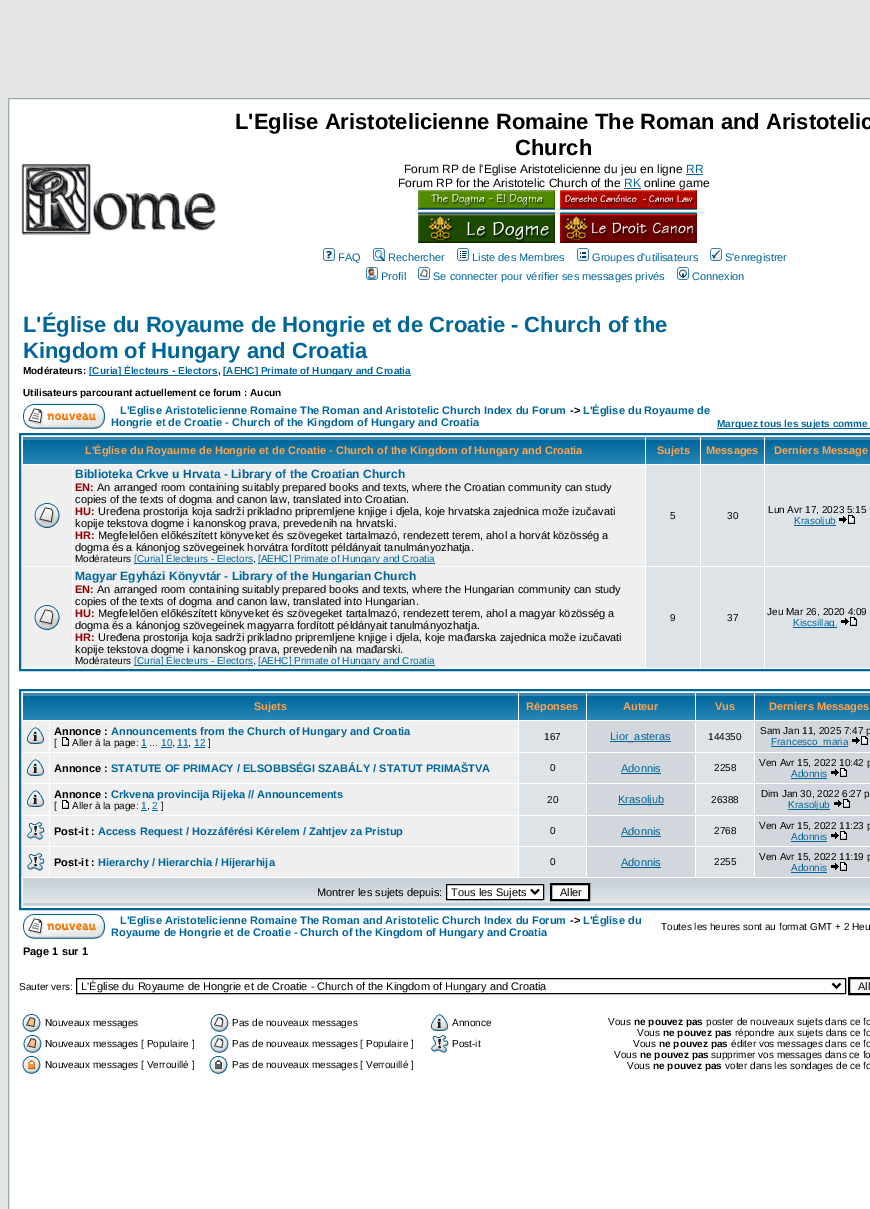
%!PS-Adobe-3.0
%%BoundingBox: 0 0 870 1209
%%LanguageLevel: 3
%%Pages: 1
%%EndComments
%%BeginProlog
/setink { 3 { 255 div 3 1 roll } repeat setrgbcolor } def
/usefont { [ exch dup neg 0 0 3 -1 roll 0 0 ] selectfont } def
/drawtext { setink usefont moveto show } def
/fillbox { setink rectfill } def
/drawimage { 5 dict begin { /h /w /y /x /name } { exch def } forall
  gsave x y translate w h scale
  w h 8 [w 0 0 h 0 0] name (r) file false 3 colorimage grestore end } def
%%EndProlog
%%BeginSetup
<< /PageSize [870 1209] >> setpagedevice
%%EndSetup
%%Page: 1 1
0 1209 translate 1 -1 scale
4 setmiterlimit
0 0 870 1209 229 229 229 fillbox
255 255 255 setink
8.5 98.5 moveto 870.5 98.5 lineto 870.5 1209.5 lineto 8.5 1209.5 lineto closepath gsave fill grestore
152 170 177 setink
stroke
(assets/img1.rgb) 21 164 195 71 drawimage
(L'Eglise Aristotelicienne Romaine The Roman and Aristotelic) 235 129 /LiberationSans-Bold 22 0 0 0 drawtext
(Church) 515 155 /LiberationSans-Bold 22 0 0 0 drawtext
(Forum RP de l'Eglise Aristotelicienne du jeu en ligne) 404 173 /LiberationSans-Regular 12 0 0 0 drawtext
686 174 17 1 0 102 153 fillbox
(RR) 686 173 /LiberationSans-Regular 12 0 102 153 drawtext
(Forum RP for the Aristotelic Church of the) 398 187 /LiberationSans-Regular 12 0 0 0 drawtext
(RK) 624 187 /LiberationSans-Regular 12 0 102 153 drawtext
624 188 17 1 0 102 153 fillbox
(online game) 644 187 /LiberationSans-Regular 12 0 0 0 drawtext
(assets/img2.rgb) 418 190 137 53 drawimage
(assets/img3.rgb) 560 190 137 53 drawimage
(assets/img4.rgb) 323 248 12 13 drawimage
(FAQ) 338 261 /LiberationSans-Regular 11 0 102 153 drawtext
(assets/img5.rgb) 373 248 12 13 drawimage
(Rechercher) 388 261 /LiberationSans-Regular 11 0 102 153 drawtext
(assets/img6.rgb) 457 248 12 13 drawimage
(Liste des Membres) 472 261 /LiberationSans-Regular 11 0 102 153 drawtext
(assets/img7.rgb) 577 248 12 13 drawimage
(Groupes d'utilisateurs) 592 261 /LiberationSans-Regular 11 0 102 153 drawtext
(assets/img8.rgb) 710 248 12 13 drawimage
(S'enregistrer) 725 261 /LiberationSans-Regular 11 0 102 153 drawtext
(assets/img9.rgb) 366 267 12 13 drawimage
(Profil) 381 280 /LiberationSans-Regular 11 0 102 153 drawtext
(assets/img10.rgb) 418 267 12 13 drawimage
(Se connecter pour vérifier ses messages privés) 433 280 /LiberationSans-Regular 11 0 102 153 drawtext
(assets/img11.rgb) 677 267 12 13 drawimage
(Connexion) 692 280 /LiberationSans-Regular 11 0 102 153 drawtext
(L'Église du Royaume de Hongrie et de Croatie - Church of the) 23 332 /LiberationSans-Bold 22 0 102 153 drawtext
(Kingdom of Hungary and Croatia) 23 358 /LiberationSans-Bold 22 0 102 153 drawtext
(Modérateurs:) 23 374 /LiberationSans-Bold 10 0 0 0 drawtext
89 375 129 1 0 102 153 fillbox
([Curia] Électeurs - Electors) 89 374 /LiberationSans-Bold 10 0 102 153 drawtext
(,) 218 374 /LiberationSans-Bold 10 0 0 0 drawtext
223 375 188 1 0 102 153 fillbox
([AEHC] Primate of Hungary and Croatia) 223 374 /LiberationSans-Bold 10 0 102 153 drawtext
(Utilisateurs parcourant actuellement ce forum : Aucun) 23 396 /LiberationSans-Bold 10 0 0 0 drawtext
(assets/img12.rgb) 23 404 82 25 drawimage
(L'Eglise Aristotelicienne Romaine The Roman and Aristotelic Church Index du Forum) 120 414 /LiberationSans-Bold 11 0 102 153 drawtext
(->) 570 414 /LiberationSans-Bold 11 0 0 0 drawtext
(L'Église du Royaume de) 583 414 /LiberationSans-Bold 11 0 102 153 drawtext
(Hongrie et de Croatie - Church of the Kingdom of Hungary and Croatia) 111 426 /LiberationSans-Bold 11 0 102 153 drawtext
717 428 153 1 0 102 153 fillbox
(Marquez tous les sujets comme) 717 427 /LiberationSans-Bold 10 0 102 153 drawtext
2 setlinewidth
20 434 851 236 rectstroke
(assets/img13.rgb) 23 437 622 27 drawimage
(L'Église du Royaume de Hongrie et de Croatie - Church of the Kingdom of Hungary and Croatia) 85 454 /LiberationSans-Bold 11 255 163 79 drawtext
(assets/img14.rgb) 646 437 54 27 drawimage
(Sujets) 657 454 /LiberationSans-Bold 11 255 163 79 drawtext
(assets/img15.rgb) 701 437 63 27 drawimage
(Messages) 706 454 /LiberationSans-Bold 11 255 163 79 drawtext
(assets/img16.rgb) 765 437 105 27 drawimage
(Derniers Message) 774 454 /LiberationSans-Bold 11 255 163 79 drawtext
22 465 50 101 239 239 239 fillbox
(assets/img17.rgb) 34 503 26 25 drawimage
73 465 572 101 239 239 239 fillbox
(Biblioteka Crkve u Hrvata - Library of the Croatian Church) 75 478 /LiberationSans-Bold 12 0 102 153 drawtext
(EN:) 75 491 /LiberationSans-Bold 11 139 0 0 drawtext
(An arranged room containing suitably prepared books and texts, where the Croatian community can study) 97 491 /LiberationSans-Regular 11 0 0 0 drawtext
(copies of the texts of dogma and canon law, translated into Croatian.) 75 503 /LiberationSans-Regular 11 0 0 0 drawtext
(HU:) 75 515 /LiberationSans-Bold 11 139 0 0 drawtext
(Uređena prostorija koja sadrži prikladno pripremljene knjige i djela, koje hrvatska zajednica može izučavati) 98 515 /LiberationSans-Regular 11 0 0 0 drawtext
(kopije tekstova dogme i kanonskog prava, prevedenih na hrvatski.) 75 527 /LiberationSans-Regular 11 0 0 0 drawtext
(HR:) 75 539 /LiberationSans-Bold 11 139 0 0 drawtext
(Megfelelően előkészített könyveket és szövegeket tartalmazó, rendezett terem, ahol a horvát közösség a) 98 539 /LiberationSans-Regular 11 0 0 0 drawtext
(dogma és a kánonjog szövegeinek horvátra fordított példányait tanulmányozhatja.) 75 551 /LiberationSans-Regular 11 0 0 0 drawtext
(Modérateurs) 75 562 /LiberationSans-Regular 10 0 0 0 drawtext
134 563 119 1 0 102 153 fillbox
([Curia] Électeurs - Electors) 134 562 /LiberationSans-Regular 10 0 102 153 drawtext
(,) 253 562 /LiberationSans-Regular 10 0 0 0 drawtext
258 563 177 1 0 102 153 fillbox
([AEHC] Primate of Hungary and Croatia) 258 562 /LiberationSans-Regular 10 0 102 153 drawtext
646 465 54 101 222 227 231 fillbox
(5) 670 519 /LiberationSans-Regular 10 0 0 0 drawtext
701 465 63 101 222 227 231 fillbox
(30) 727 519 /LiberationSans-Regular 10 0 0 0 drawtext
765 465 105 101 222 227 231 fillbox
(Lun Avr 17, 2023 5:15) 768 513 /LiberationSans-Regular 10 0 0 0 drawtext
794 525 42 1 0 102 153 fillbox
(Krasoljub) 794 524 /LiberationSans-Regular 10 0 102 153 drawtext
(assets/img18.rgb) 839 515 16 9 drawimage
22 567 50 101 239 239 239 fillbox
(assets/img17.rgb) 34 605 26 25 drawimage
73 567 572 101 239 239 239 fillbox
(Magyar Egyházi Könyvtár - Library of the Hungarian Church) 75 580 /LiberationSans-Bold 12 0 102 153 drawtext
(EN:) 75 593 /LiberationSans-Bold 11 139 0 0 drawtext
(An arranged room containing suitably prepared books and texts, where the Hungarian community can study) 97 593 /LiberationSans-Regular 11 0 0 0 drawtext
(copies of the texts of dogma and canon law, translated into Hungarian.) 75 605 /LiberationSans-Regular 11 0 0 0 drawtext
(HU:) 75 617 /LiberationSans-Bold 11 139 0 0 drawtext
(Megfelelően előkészített könyveket és szövegeket tartalmazó, rendezett terem, ahol a magyar közösség a) 98 617 /LiberationSans-Regular 11 0 0 0 drawtext
(dogma és a kánonjog szövegeinek magyarra fordított példányait tanulmányozhatja.) 75 629 /LiberationSans-Regular 11 0 0 0 drawtext
(HR:) 75 641 /LiberationSans-Bold 11 139 0 0 drawtext
(Uređena prostorija koja sadrži prikladno pripremljene knjige i djela, koje mađarska zajednica može izučavati) 98 641 /LiberationSans-Regular 11 0 0 0 drawtext
(kopije tekstova dogme i kanonskog prava, prevedenih na mađarski.) 75 653 /LiberationSans-Regular 11 0 0 0 drawtext
(Modérateurs) 75 664 /LiberationSans-Regular 10 0 0 0 drawtext
134 665 119 1 0 102 153 fillbox
([Curia] Électeurs - Electors) 134 664 /LiberationSans-Regular 10 0 102 153 drawtext
(,) 253 664 /LiberationSans-Regular 10 0 0 0 drawtext
258 665 177 1 0 102 153 fillbox
([AEHC] Primate of Hungary and Croatia) 258 664 /LiberationSans-Regular 10 0 102 153 drawtext
646 567 54 101 222 227 231 fillbox
(9) 670 621 /LiberationSans-Regular 10 0 0 0 drawtext
701 567 63 101 222 227 231 fillbox
(37) 727 621 /LiberationSans-Regular 10 0 0 0 drawtext
765 567 105 101 222 227 231 fillbox
(Jeu Mar 26, 2020 4:09) 767 615 /LiberationSans-Regular 10 0 0 0 drawtext
793 627 44 1 0 102 153 fillbox
(Kiscsillag.) 793 626 /LiberationSans-Regular 10 0 102 153 drawtext
(assets/img18.rgb) 841 617 16 9 drawimage
20 690 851 219 rectstroke
(assets/img19.rgb) 23 693 495 27 drawimage
(Sujets) 254 710 /LiberationSans-Bold 11 255 163 79 drawtext
(assets/img20.rgb) 519 693 67 27 drawimage
(Réponses) 526 710 /LiberationSans-Bold 11 255 163 79 drawtext
(assets/img21.rgb) 587 693 108 27 drawimage
(Auteur) 623 710 /LiberationSans-Bold 11 255 163 79 drawtext
(assets/img22.rgb) 696 693 58 27 drawimage
(Vus) 715 710 /LiberationSans-Bold 11 255 163 79 drawtext
(assets/img23.rgb) 755 693 115 27 drawimage
(Derniers Messages) 769 710 /LiberationSans-Bold 11 255 163 79 drawtext
22 721 27 31 239 239 239 fillbox
(assets/img24.rgb) 26 727 19 17 drawimage
50 721 468 31 239 239 239 fillbox
(Annonce :) 54 735 /LiberationSans-Bold 11 0 0 0 drawtext
(Announcements from the Church of Hungary and Croatia) 111 735 /LiberationSans-Bold 11 0 102 153 drawtext
([) 54 746 /LiberationSans-Regular 10 0 0 0 drawtext
(assets/img25.rgb) 62 737 7 9 drawimage
(Aller à la page:) 72 746 /LiberationSans-Regular 10 0 0 0 drawtext
(1) 141 746 /LiberationSans-Regular 10 0 102 153 drawtext
(...) 149 746 /LiberationSans-Regular 10 0 0 0 drawtext
141 747 6 1 0 102 153 fillbox
(10) 161 746 /LiberationSans-Regular 10 0 102 153 drawtext
(,) 172 746 /LiberationSans-Regular 10 0 0 0 drawtext
161 747 11 1 0 102 153 fillbox
(11) 177 746 /LiberationSans-Regular 10 0 102 153 drawtext
(,) 188 746 /LiberationSans-Regular 10 0 0 0 drawtext
177 747 11 1 0 102 153 fillbox
194 747 11 1 0 102 153 fillbox
(12) 194 746 /LiberationSans-Regular 10 0 102 153 drawtext
(]) 208 746 /LiberationSans-Regular 10 0 0 0 drawtext
519 721 67 31 222 227 231 fillbox
(167) 544 740 /LiberationSans-Regular 10 0 0 0 drawtext
587 721 108 31 209 215 220 fillbox
610 741 61 1 0 102 153 fillbox
(Lior_asteras) 610 740 /LiberationSans-Regular 11 0 102 153 drawtext
696 721 58 31 222 227 231 fillbox
(144350) 708 740 /LiberationSans-Regular 10 0 0 0 drawtext
755 721 115 31 209 215 220 fillbox
(Sam Jan 11, 2025 7:47 p) 760 734 /LiberationSans-Regular 10 0 0 0 drawtext
771 746 77 1 0 102 153 fillbox
(Francesco_maria) 771 745 /LiberationSans-Regular 10 0 102 153 drawtext
(assets/img26.rgb) 852 736 16 9 drawimage
22 753 27 30 239 239 239 fillbox
(assets/img24.rgb) 26 759 19 17 drawimage
50 753 468 30 239 239 239 fillbox
(Annonce :) 54 772 /LiberationSans-Bold 11 0 0 0 drawtext
(STATUTE OF PRIMACY / ELSOBBSÉGI SZABÁLY / STATUT PRIMAŠTVA) 111 772 /LiberationSans-Bold 11 0 102 153 drawtext
519 753 67 30 222 227 231 fillbox
(0) 550 771 /LiberationSans-Regular 10 0 0 0 drawtext
587 753 108 30 209 215 220 fillbox
(Adonnis) 621 772 /LiberationSans-Regular 11 0 102 153 drawtext
621 773 40 1 0 102 153 fillbox
696 753 58 30 222 227 231 fillbox
(2258) 714 771 /LiberationSans-Regular 10 0 0 0 drawtext
755 753 115 30 209 215 220 fillbox
(Ven Avr 15, 2022 10:42 p) 759 766 /LiberationSans-Regular 10 0 0 0 drawtext
(Adonnis) 791 777 /LiberationSans-Regular 10 0 102 153 drawtext
791 778 36 1 0 102 153 fillbox
(assets/img27.rgb) 831 768 16 9 drawimage
22 784 27 31 239 239 239 fillbox
(assets/img24.rgb) 26 790 19 17 drawimage
50 784 468 31 239 239 239 fillbox
(Annonce :) 54 798 /LiberationSans-Bold 11 0 0 0 drawtext
(Crkvena provincija Rijeka // Announcements) 111 798 /LiberationSans-Bold 11 0 102 153 drawtext
([) 54 809 /LiberationSans-Regular 10 0 0 0 drawtext
(assets/img25.rgb) 62 800 7 9 drawimage
(Aller à la page:) 72 809 /LiberationSans-Regular 10 0 0 0 drawtext
(1) 141 809 /LiberationSans-Regular 10 0 102 153 drawtext
(,) 147 809 /LiberationSans-Regular 10 0 0 0 drawtext
141 810 6 1 0 102 153 fillbox
152 810 6 1 0 102 153 fillbox
(2) 152 809 /LiberationSans-Regular 10 0 102 153 drawtext
(]) 161 809 /LiberationSans-Regular 10 0 0 0 drawtext
519 784 67 31 222 227 231 fillbox
(20) 547 803 /LiberationSans-Regular 10 0 0 0 drawtext
587 784 108 31 209 215 220 fillbox
618 804 46 1 0 102 153 fillbox
(Krasoljub) 618 803 /LiberationSans-Regular 11 0 102 153 drawtext
696 784 58 31 222 227 231 fillbox
(26388) 711 803 /LiberationSans-Regular 10 0 0 0 drawtext
755 784 115 31 209 215 220 fillbox
(Dim Jan 30, 2022 6:27 p) 761 797 /LiberationSans-Regular 10 0 0 0 drawtext
788 809 42 1 0 102 153 fillbox
(Krasoljub) 788 808 /LiberationSans-Regular 10 0 102 153 drawtext
(assets/img27.rgb) 834 799 16 9 drawimage
22 816 27 30 239 239 239 fillbox
(assets/img28.rgb) 27 822 18 18 drawimage
50 816 468 30 239 239 239 fillbox
(Post-it :) 54 835 /LiberationSans-Bold 11 0 0 0 drawtext
(Access Request / Hozzáférési Kérelem / Zahtjev za Pristup) 98 835 /LiberationSans-Bold 11 0 102 153 drawtext
519 816 67 30 222 227 231 fillbox
(0) 550 834 /LiberationSans-Regular 10 0 0 0 drawtext
587 816 108 30 209 215 220 fillbox
(Adonnis) 621 835 /LiberationSans-Regular 11 0 102 153 drawtext
621 836 40 1 0 102 153 fillbox
696 816 58 30 222 227 231 fillbox
(2768) 714 834 /LiberationSans-Regular 10 0 0 0 drawtext
755 816 115 30 209 215 220 fillbox
(Ven Avr 15, 2022 11:23 p) 759 829 /LiberationSans-Regular 10 0 0 0 drawtext
(Adonnis) 791 840 /LiberationSans-Regular 10 0 102 153 drawtext
791 841 36 1 0 102 153 fillbox
(assets/img27.rgb) 831 831 16 9 drawimage
22 847 27 30 239 239 239 fillbox
(assets/img28.rgb) 27 853 18 18 drawimage
50 847 468 30 239 239 239 fillbox
(Post-it :) 54 866 /LiberationSans-Bold 11 0 0 0 drawtext
(Hierarchy / Hierarchia / Hijerarhija) 98 866 /LiberationSans-Bold 11 0 102 153 drawtext
519 847 67 30 222 227 231 fillbox
(0) 550 865 /LiberationSans-Regular 10 0 0 0 drawtext
587 847 108 30 209 215 220 fillbox
(Adonnis) 621 866 /LiberationSans-Regular 11 0 102 153 drawtext
621 867 40 1 0 102 153 fillbox
696 847 58 30 222 227 231 fillbox
(2255) 714 865 /LiberationSans-Regular 10 0 0 0 drawtext
755 847 115 30 209 215 220 fillbox
(Ven Avr 15, 2022 11:19 p) 759 860 /LiberationSans-Regular 10 0 0 0 drawtext
(Adonnis) 791 871 /LiberationSans-Regular 10 0 102 153 drawtext
791 872 36 1 0 102 153 fillbox
(assets/img27.rgb) 831 862 16 9 drawimage
(assets/img29.rgb) 23 878 847 28 drawimage
(Montrer les sujets depuis:) 317 896 /LiberationSans-Regular 11 0 0 0 drawtext
255 255 255 setink
446.5 884.5 moveto 543.5 884.5 lineto 543.5 899.5 lineto 446.5 899.5 lineto closepath gsave fill grestore
0 0 0 setink
1 setlinewidth
stroke
2 setlinewidth
531 889.5 moveto 535 893.5 lineto 539 889.5 lineto stroke
(Tous les Sujets) 451 896 /LiberationSans-Regular 11 0 0 0 drawtext
250 250 250 setink
551 884 moveto 589 884 lineto 589 900 lineto 551 900 lineto closepath gsave fill grestore
0 0 0 setink
stroke
(Aller) 560 896 /LiberationSans-Regular 11 0 0 0 drawtext
(assets/img12.rgb) 23 914 82 25 drawimage
(L'Eglise Aristotelicienne Romaine The Roman and Aristotelic Church Index du Forum) 120 924 /LiberationSans-Bold 11 0 102 153 drawtext
(->) 570 924 /LiberationSans-Bold 11 0 0 0 drawtext
(L'Église du) 583 924 /LiberationSans-Bold 11 0 102 153 drawtext
(Royaume de Hongrie et de Croatie - Church of the Kingdom of Hungary and Croatia) 111 936 /LiberationSans-Bold 11 0 102 153 drawtext
(Toutes les heures sont au format GMT + 2 Heu) 661 930 /LiberationSans-Regular 10 0 0 0 drawtext
(Page 1 sur 1) 23 955 /LiberationSans-Bold 11 0 0 0 drawtext
(Sauter vers:) 19 990 /LiberationSans-Regular 10 0 0 0 drawtext
1 setlinewidth
76.5 978.5 769 15 rectstroke
2 setlinewidth
832.5 983.5 moveto 836.5 987.5 lineto 840.5 983.5 lineto stroke
(L'Église du Royaume de Hongrie et de Croatie - Church of the Kingdom of Hungary and Croatia) 81 990 /LiberationSans-Regular 11 0 0 0 drawtext
250 250 250 setink
849 978 moveto 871 978 lineto 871 994 lineto 849 994 lineto closepath gsave fill grestore
0 0 0 setink
stroke
(All) 858 990 /LiberationSans-Regular 11 0 0 0 drawtext
(assets/img30.rgb) 22 1014 19 18 drawimage
(Nouveaux messages) 45 1026 /LiberationSans-Regular 10 0 0 0 drawtext
(assets/img31.rgb) 210 1014 19 18 drawimage
(Pas de nouveaux messages) 232 1026 /LiberationSans-Regular 10 0 0 0 drawtext
(assets/img32.rgb) 430 1014 19 17 drawimage
(Annonce) 452 1026 /LiberationSans-Regular 10 0 0 0 drawtext
(assets/img33.rgb) 23 1035 19 18 drawimage
(Nouveaux messages [ Populaire ]) 45 1047 /LiberationSans-Regular 10 0 0 0 drawtext
(assets/img34.rgb) 210 1035 19 18 drawimage
(Pas de nouveaux messages [ Populaire ]) 232 1047 /LiberationSans-Regular 10 0 0 0 drawtext
(assets/img35.rgb) 431 1035 18 18 drawimage
(Post-it) 452 1047 /LiberationSans-Regular 10 0 0 0 drawtext
(assets/img36.rgb) 22 1056 19 18 drawimage
(Nouveaux messages [ Verrouillé ]) 45 1068 /LiberationSans-Regular 10 0 0 0 drawtext
(assets/img37.rgb) 209 1056 19 18 drawimage
(Pas de nouveaux messages [ Verrouillé ]) 232 1068 /LiberationSans-Regular 10 0 0 0 drawtext
(Vous) 608 1025 /LiberationSans-Regular 10 0 0 0 drawtext
(ne pouvez pas) 634 1025 /LiberationSans-Bold 10 0 0 0 drawtext
(poster de nouveaux sujets dans ce fo) 706 1025 /LiberationSans-Regular 10 0 0 0 drawtext
(Vous) 637 1036 /LiberationSans-Regular 10 0 0 0 drawtext
(ne pouvez pas) 663 1036 /LiberationSans-Bold 10 0 0 0 drawtext
(répondre aux sujets dans ce fo) 735 1036 /LiberationSans-Regular 10 0 0 0 drawtext
(Vous) 633 1047 /LiberationSans-Regular 10 0 0 0 drawtext
(ne pouvez pas) 659 1047 /LiberationSans-Bold 10 0 0 0 drawtext
(éditer vos messages dans ce fo) 731 1047 /LiberationSans-Regular 10 0 0 0 drawtext
(Vous) 614 1058 /LiberationSans-Regular 10 0 0 0 drawtext
(ne pouvez pas) 640 1058 /LiberationSans-Bold 10 0 0 0 drawtext
(supprimer vos messages dans ce fo) 711 1058 /LiberationSans-Regular 10 0 0 0 drawtext
(Vous) 627 1069 /LiberationSans-Regular 10 0 0 0 drawtext
(ne pouvez pas) 653 1069 /LiberationSans-Bold 10 0 0 0 drawtext
(voter dans les sondages de ce fo) 725 1069 /LiberationSans-Regular 10 0 0 0 drawtext
showpage
%%EOF
